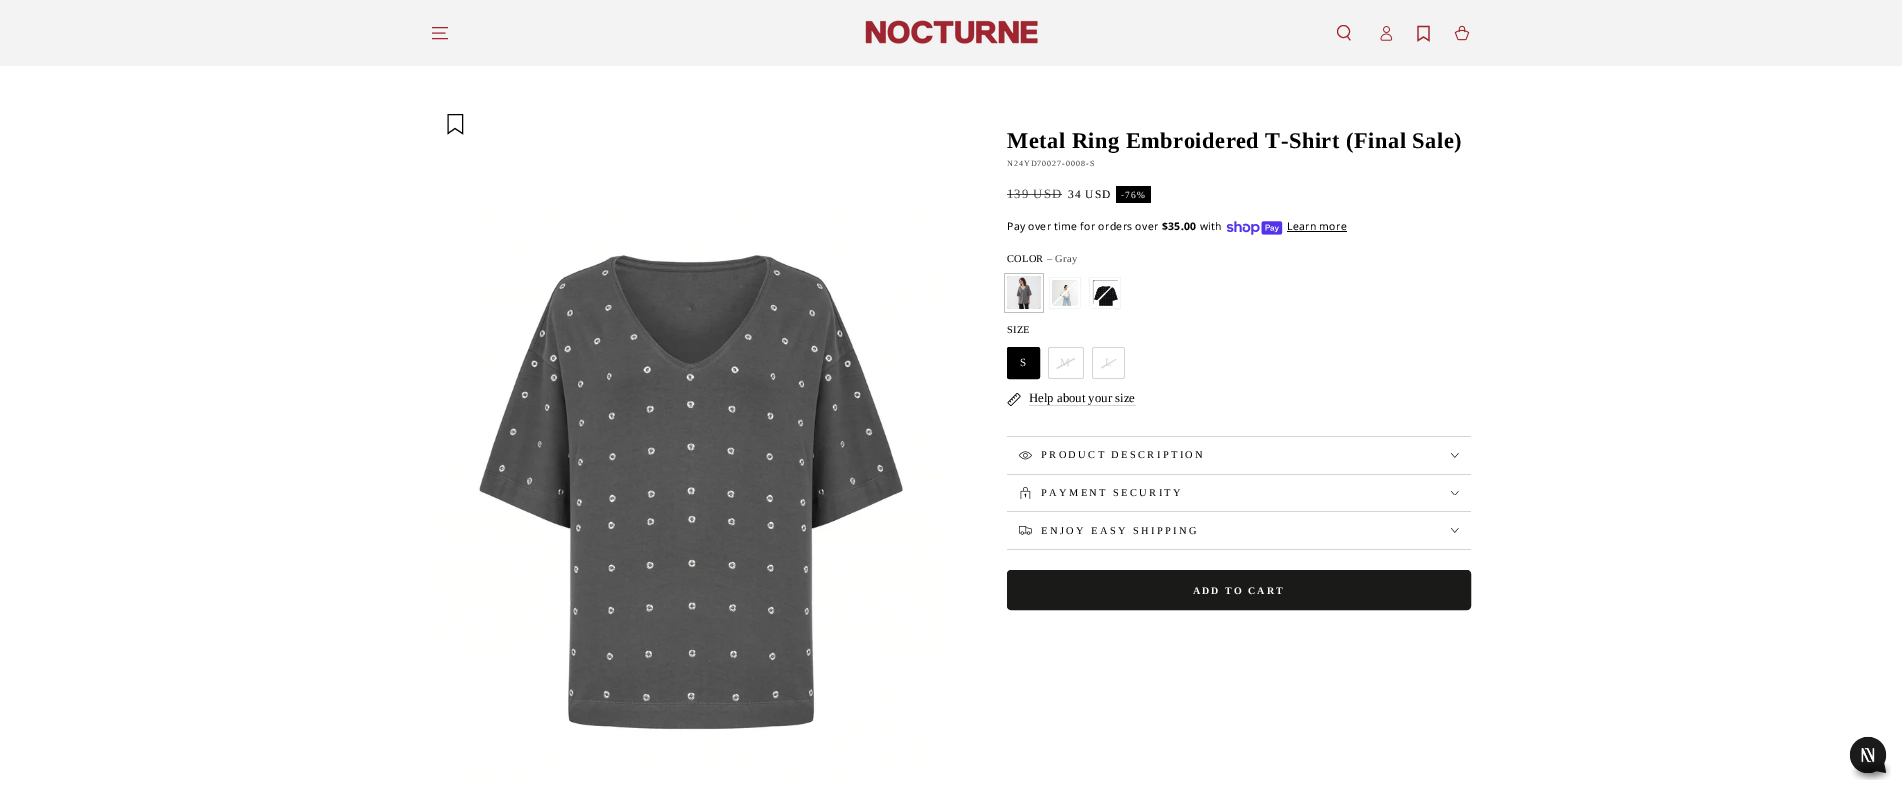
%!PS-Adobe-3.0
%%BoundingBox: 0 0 1902 791
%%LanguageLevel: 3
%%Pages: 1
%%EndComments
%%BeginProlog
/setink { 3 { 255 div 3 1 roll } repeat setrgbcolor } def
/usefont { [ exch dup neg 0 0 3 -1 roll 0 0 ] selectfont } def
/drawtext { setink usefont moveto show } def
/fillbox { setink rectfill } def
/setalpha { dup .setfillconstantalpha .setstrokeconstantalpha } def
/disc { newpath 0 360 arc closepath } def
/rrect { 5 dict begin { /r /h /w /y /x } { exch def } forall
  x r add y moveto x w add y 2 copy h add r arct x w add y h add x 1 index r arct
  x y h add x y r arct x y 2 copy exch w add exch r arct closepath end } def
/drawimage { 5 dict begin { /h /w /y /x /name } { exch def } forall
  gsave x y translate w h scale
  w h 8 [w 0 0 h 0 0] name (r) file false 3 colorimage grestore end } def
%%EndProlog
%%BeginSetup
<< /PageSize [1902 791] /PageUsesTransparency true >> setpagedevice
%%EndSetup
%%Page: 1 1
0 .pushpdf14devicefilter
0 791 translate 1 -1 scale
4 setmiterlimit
0 0 1902 791 255 255 255 fillbox
0 0 1902 66 243 243 243 fillbox
158 38 47 setink
0.9 setlinewidth
432 38.5 moveto 448 38.5 lineto 432 33 moveto 445.5 33 lineto 432 27.5 moveto 448 27.5 lineto stroke
(assets/img1.rgb) 865 20 173 24 drawimage
1 setlinewidth
1343.5 31.5 6 disc stroke
1 setlinecap
1347.5 36.5 moveto 1350 40 lineto stroke
(assets/img2.rgb) 1380 26 13 15 drawimage
1.2 setlinewidth
0 setlinecap
1418 26.5 moveto 1429 26.5 lineto 1429 40.5 lineto 1423.5 37 lineto 1418 40.5 lineto closepath stroke
(assets/img3.rgb) 1454 25 16 16 drawimage
(assets/img4.rgb) 431 102 520 689 drawimage
0 0 0 setink
1 setlinewidth
447.5 114.5 moveto 462.5 114.5 lineto 462.5 133.5 lineto 455 128.5 lineto 448 133.5 lineto 448 114.5 lineto closepath stroke
/LiberationSerif-Bold 22.4 usefont
1007 148 moveto 0.5 0 (Metal Ring Embroidered T-Shirt \(Final Sale\)) ashow
/LiberationSerif-Regular 8 usefont
64 64 64 setink
1007 166 moveto 1 0 (N24YD70027-0008-S) ashow
/LiberationSerif-Regular 12.75 usefont
77 77 77 setink
1007 198 moveto 1 0 (139 USD) ashow
0.7 setalpha
1007 194 55 1 0 0 0 fillbox
/LiberationSerif-Regular 11.5 usefont
1 setalpha
1068 198 moveto 1 0 (34 USD) ashow
1116 186 35 17 0 0 0 fillbox
/LiberationSerif-Regular 9.5 usefont
255 255 255 setink
1121 198 moveto 1 0 (-76%) ashow
/NotoSans-Regular 10.4 usefont
0 0 0 setink
1007 230 moveto 0.3 0 (Pay over time for orders over) ashow
/NotoSans-Bold 10.4 usefont
1162 230 moveto 0.3 0 ($35.00) ashow
/NotoSans-Regular 10.4 usefont
1200 230 moveto 0.3 0 (with) ashow
(assets/img5.rgb) 1226 221 57 14 drawimage
1287 230 moveto 0.3 0 (Learn more) ashow
1287 231 60 1 0 0 0 fillbox
/LiberationSerif-Regular 10.4 usefont
1007 262 moveto 0.3 0 (COLOR) ashow
77 77 77 setink
1047 262 moveto 0.3 0 (– Gray) ashow
(assets/img6.rgb) 1007 276 34 33 drawimage
189 192 195 setink
0.8 setlinewidth
1004.4 273.4 39.2 39.2 0.6 rrect stroke
(assets/img7.rgb) 1052 280 26 26 drawimage
210 213 217 setink
0.6 setlinewidth
1054 280.5 moveto 1075.5 280.5 lineto 1076 280.5 1077 281 1077 282 curveto 1077 303.5 lineto 1077 304 1076 304 1075.5 304 curveto 1054 304 lineto 1053 304 1052.5 304 1052.5 303.5 curveto 1052.5 282 lineto 1052.5 281 1053 280.5 1054 280.5 curveto closepath stroke
(assets/img8.rgb) 1052 280 26 26 drawimage
255 255 255 setink
1052.5 304.5 moveto 1076 281 lineto 1077 281.5 lineto 1053 305.5 lineto closepath fill
231 234 239 setink
1049.5 277 moveto 1049 277.5 lineto 1049 308.5 lineto 1050.5 309.5 1054.5 309 1055 309 curveto 1078.5 309 lineto 1080 308.5 lineto 1049.5 308.5 lineto 1049.5 277.5 lineto 1080.5 277.5 lineto 1080.5 308 lineto 1081 306.5 lineto 1081 283 lineto 1081 282.5 1081.5 278.5 1080.5 277 curveto closepath fill
(assets/img9.rgb) 1093 280 25 26 drawimage
210 213 217 setink
1094.5 280.5 moveto 1116 280.5 lineto 1117 280.5 1117.5 281 1117.5 282 curveto 1117.5 303.5 lineto 1117.5 304 1117 304 1116 304 curveto 1094.5 304 lineto 1093.5 304 1093 304 1093 303.5 curveto 1093 282 lineto 1093 281 1093.5 280.5 1094.5 280.5 curveto closepath stroke
0 0 0 setink
1093 280 25 25 2 rrect fill
(assets/img10.rgb) 1093 280 25 26 drawimage
255 255 255 setink
1093 304.5 moveto 1117 281 lineto 1117.5 281.5 lineto 1094 305.5 lineto closepath fill
231 234 239 setink
1089.5 277 moveto 1088.5 278.5 1089 282.5 1089 283 curveto 1089 306.5 lineto 1089.5 308 lineto 1089.5 277.5 lineto 1120.5 277.5 lineto 1120.5 308.5 lineto 1090 308.5 lineto 1091.5 309 lineto 1115 309 lineto 1115.5 309 1119.5 309.5 1121 308.5 curveto 1121 277.5 lineto 1120.5 277 lineto closepath fill
0 0 0 setink
1007 333 moveto 0.3 0 (SIZE) ashow
2 setlinewidth
1008 348 31 30 1.5 rrect stroke
1007 347 33 32 2.5 rrect fill
/LiberationSerif-Regular 11 usefont
255 255 255 setink
1020 366 moveto 1 0 (S) ashow
210 213 217 setink
0.8 setlinewidth
1048.4 347.4 35.2 31.2 2.1 rrect stroke
1056.5 368 moveto 1074.5 358 lineto 1075 359 lineto 1057 369 lineto closepath fill
1060 366 moveto 1 0 (M) ashow
1092.4 347.4 32.2 31.2 2.1 rrect stroke
1105 366 moveto 1 0 (L) ashow
1101 367.5 moveto 1116 359 lineto 1116.5 359.5 lineto 1101.5 368.5 lineto closepath fill
(assets/img11.rgb) 1007 392 14 14 drawimage
1029 405 107 1 210 213 217 fillbox
(Help about your size) 1029 402 /LiberationSerif-Regular 12.75 0 0 0 drawtext
1007 436 464 1 210 213 217 fillbox
1007 474 464 1 210 213 217 fillbox
(assets/img12.rgb) 1019 451 13 9 drawimage
/LiberationSerif-Regular 10.4 usefont
0 0 0 setink
1041 458 moveto 2.4 0 (PRODUCT DESCRIPTION) ashow
(assets/img13.rgb) 1451 453 8 5 drawimage
1007 511 464 1 210 213 217 fillbox
(assets/img14.rgb) 1020 487 11 12 drawimage
0 0 0 setink
1041 496 moveto 2.4 0 (PAYMENT SECURITY) ashow
(assets/img15.rgb) 1451 491 8 4 drawimage
1007 549 464 1 210 213 217 fillbox
(assets/img16.rgb) 1019 526 13 9 drawimage
0 0 0 setink
1041 534 moveto 2.4 0 (ENJOY EASY SHIPPING) ashow
(assets/img13.rgb) 1451 528 8 5 drawimage
26 27 24 setink
1008 571 462 38 3 rrect gsave fill grestore
2 setlinewidth
stroke
/LiberationSerif-Bold 10 usefont
255 255 255 setink
1193 594 moveto 2 0 (ADD TO CART) ashow
(assets/img17.rgb) 1849 736 42 44 drawimage
.poppdf14devicefilter showpage
%%EOF
